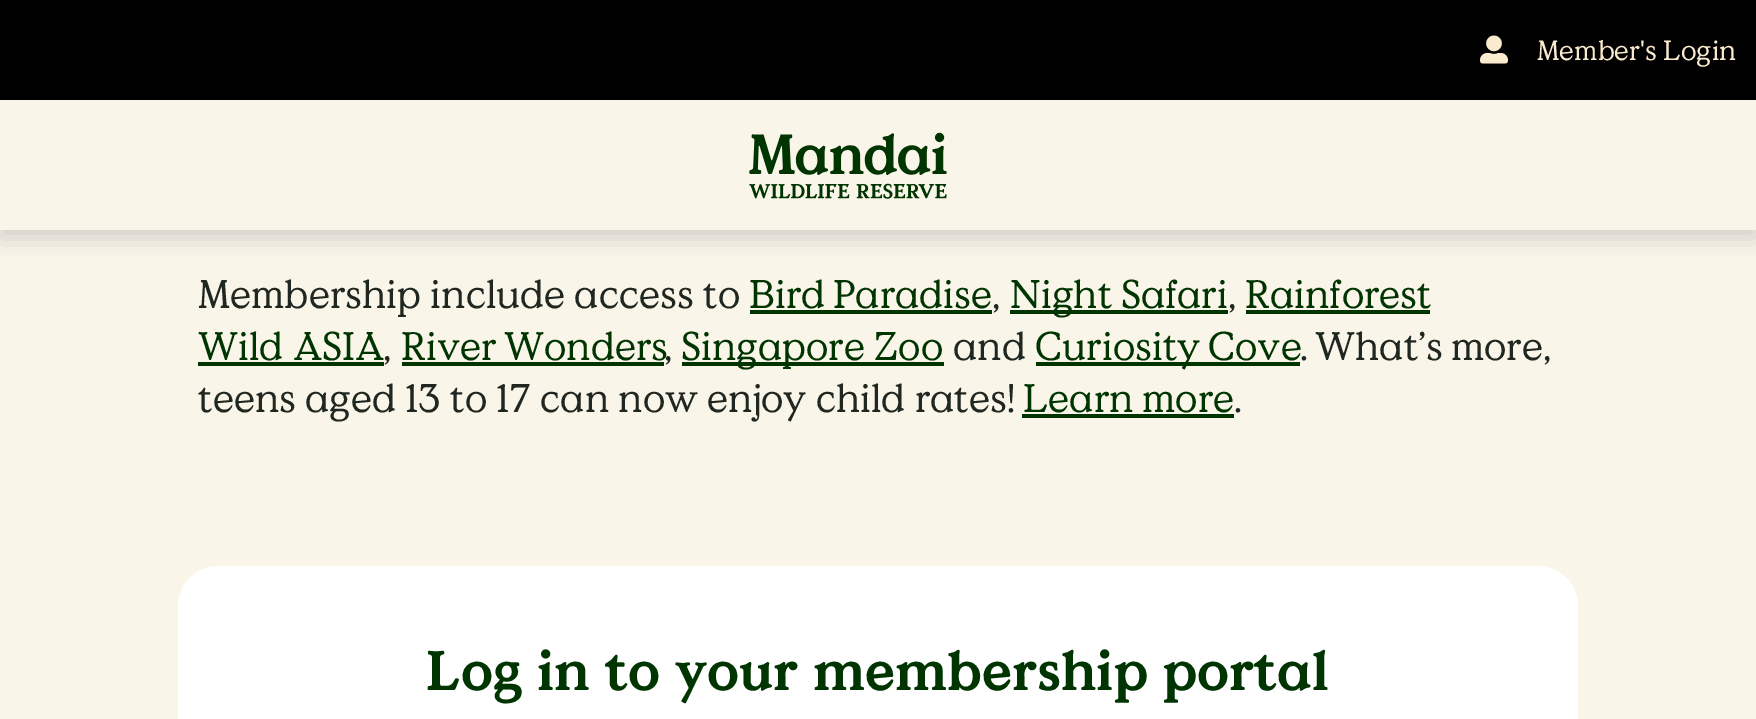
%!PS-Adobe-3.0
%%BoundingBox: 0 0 1756 719
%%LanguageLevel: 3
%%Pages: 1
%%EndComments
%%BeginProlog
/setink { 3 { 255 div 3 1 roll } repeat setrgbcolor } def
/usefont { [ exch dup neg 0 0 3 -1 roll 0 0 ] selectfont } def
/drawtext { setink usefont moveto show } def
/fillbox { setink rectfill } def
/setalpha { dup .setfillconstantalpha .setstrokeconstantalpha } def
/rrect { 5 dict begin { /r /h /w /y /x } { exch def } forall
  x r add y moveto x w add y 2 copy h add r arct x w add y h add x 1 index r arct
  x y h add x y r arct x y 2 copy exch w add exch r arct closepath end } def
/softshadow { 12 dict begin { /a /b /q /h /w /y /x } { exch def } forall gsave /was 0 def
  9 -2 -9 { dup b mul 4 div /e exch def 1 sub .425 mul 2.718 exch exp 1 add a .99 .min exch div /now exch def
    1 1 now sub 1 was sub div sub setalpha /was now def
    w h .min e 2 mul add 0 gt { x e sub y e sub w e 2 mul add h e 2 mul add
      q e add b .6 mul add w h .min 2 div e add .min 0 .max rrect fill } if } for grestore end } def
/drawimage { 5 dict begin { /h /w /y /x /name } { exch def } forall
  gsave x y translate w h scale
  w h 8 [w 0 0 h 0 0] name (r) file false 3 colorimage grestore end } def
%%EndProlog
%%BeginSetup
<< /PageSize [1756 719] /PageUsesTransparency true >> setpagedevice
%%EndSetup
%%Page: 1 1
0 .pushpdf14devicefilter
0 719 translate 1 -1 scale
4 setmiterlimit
0 0 1756 719 250 245 233 fillbox
gsave
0 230 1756 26 rectclip
114 114 114 setink
0 108 1756 130 0 12 0.3 softshadow
grestore
0 0 1756 100 0 0 0 fillbox
(assets/img1.rgb) 1480 35 28 29 drawimage
(Member's Login) 1537 60 /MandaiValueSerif-Regular 28 251 235 206 drawtext
(assets/img2.rgb) 749 132 198 67 drawimage
(Membership include access to) 198 308 /MandaiValueSerif-Regular 40 32 39 33 drawtext
0 52 0 setink
749 308 moveto -1 0 32 (Bird Paradise) widthshow
(,) 992 308 /MandaiValueSerif-Regular 40 32 39 33 drawtext
750 310 242 4 0 52 0 fillbox
1010 310 218 4 0 52 0 fillbox
1010 308 moveto -1 0 32 (Night Safari) widthshow
(,) 1228 308 /MandaiValueSerif-Regular 40 32 39 33 drawtext
1246 310 184 4 0 52 0 fillbox
(Rainforest) 1245 308 /MandaiValueSerif-Regular 40 0 52 0 drawtext
(Wild ASIA) 198 360 /MandaiValueSerif-Regular 40 0 52 0 drawtext
(,) 383 360 /MandaiValueSerif-Regular 40 32 39 33 drawtext
198 362 186 4 0 52 0 fillbox
401 360 moveto -2 0 32 (River Wonders) widthshow
(,) 664 360 /MandaiValueSerif-Regular 40 32 39 33 drawtext
402 362 262 4 0 52 0 fillbox
682 362 262 4 0 52 0 fillbox
(Singapore Zoo) 681 360 /MandaiValueSerif-Regular 40 0 52 0 drawtext
(and) 953 360 /MandaiValueSerif-Regular 40 32 39 33 drawtext
1036 362 264 4 0 52 0 fillbox
1035 360 moveto -2 0 32 (Curiosity Cove) widthshow
(.) 1300 360 /MandaiValueSerif-Regular 40 32 39 33 drawtext
1315 360 moveto -2 0 32 (What’s more,) widthshow
198 412 moveto -0.25 0 32 (teens aged 13 to 17 can now enjoy child rates!) widthshow
0 52 0 setink
1023 412 moveto -1 0 32 (Learn more) widthshow
1022 414 212 4 0 52 0 fillbox
(.) 1234 412 /MandaiValueSerif-Regular 40 32 39 33 drawtext
255 255 255 setink
178 566 1400 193 40 rrect fill
/MandaiValueSerif-Bold 56 usefont
0 52 0 setink
426 690 moveto -1.5 0 32 (Log in to your membership portal) widthshow
.poppdf14devicefilter showpage
%%EOF
